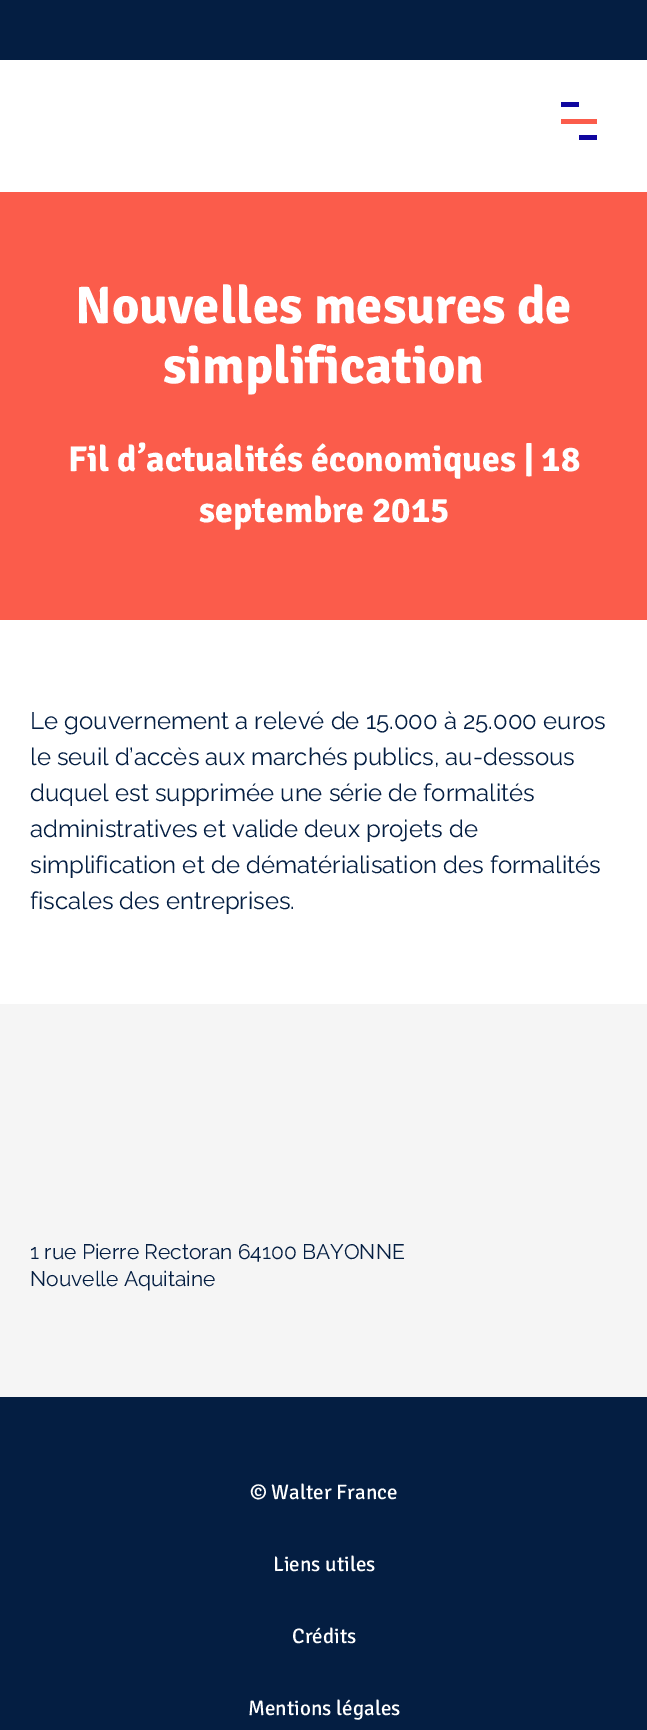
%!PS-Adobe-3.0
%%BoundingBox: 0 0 647 1730
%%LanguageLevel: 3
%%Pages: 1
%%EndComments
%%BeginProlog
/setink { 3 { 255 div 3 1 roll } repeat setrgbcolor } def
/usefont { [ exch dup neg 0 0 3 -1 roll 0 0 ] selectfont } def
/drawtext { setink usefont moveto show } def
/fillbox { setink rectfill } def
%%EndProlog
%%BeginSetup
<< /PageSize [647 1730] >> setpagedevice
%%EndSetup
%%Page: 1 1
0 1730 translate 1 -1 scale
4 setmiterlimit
0 0 647 1730 255 255 255 fillbox
0 0 647 60 4 30 66 fillbox
561 102 18 5 16 6 159 fillbox
561 119 36 5 251 92 75 fillbox
579 135 18 5 16 6 159 fillbox
0 192 647 428 251 92 75 fillbox
(Nouvelles mesures de) 75 323 /Signika-Bold 52.75 255 255 255 drawtext
(simplification) 163 383 /Signika-Bold 52.75 255 255 255 drawtext
(Fil d’actualités économiques | 18) 68 471 /Signika-Bold 36 255 255 255 drawtext
(septembre 2015) 199 522 /Signika-Bold 36 255 255 255 drawtext
(Le gouvernement a relevé de 15.000 à 25.000 euros) 30 729 /Raleway-Regular 24 4 30 66 drawtext
(le seuil d’accès aux marchés publics, au-dessous) 30 765 /Raleway-Regular 24 4 30 66 drawtext
(duquel est supprimée une série de formalités) 30 801 /Raleway-Regular 24 4 30 66 drawtext
(administratives et valide deux projets de) 30 837 /Raleway-Regular 24 4 30 66 drawtext
(simplification et de dématérialisation des formalités) 30 873 /Raleway-Regular 24 4 30 66 drawtext
(fiscales des entreprises.) 30 909 /Raleway-Regular 24 4 30 66 drawtext
0 1004 647 393 245 245 245 fillbox
(1 rue Pierre Rectoran 64100 BAYONNE) 30 1259 /Raleway-Regular 21 4 30 66 drawtext
(Nouvelle Aquitaine) 30 1286 /Raleway-Regular 21 4 30 66 drawtext
0 1397 647 333 4 30 66 fillbox
(© Walter France) 250 1499 /Signika-Regular 21 255 255 255 drawtext
(Liens utiles) 273 1571 /Signika-Regular 21 255 255 255 drawtext
(Crédits) 292 1643 /Signika-Regular 21 255 255 255 drawtext
(Mentions légales) 248 1715 /Signika-Regular 21 255 255 255 drawtext
showpage
%%EOF
